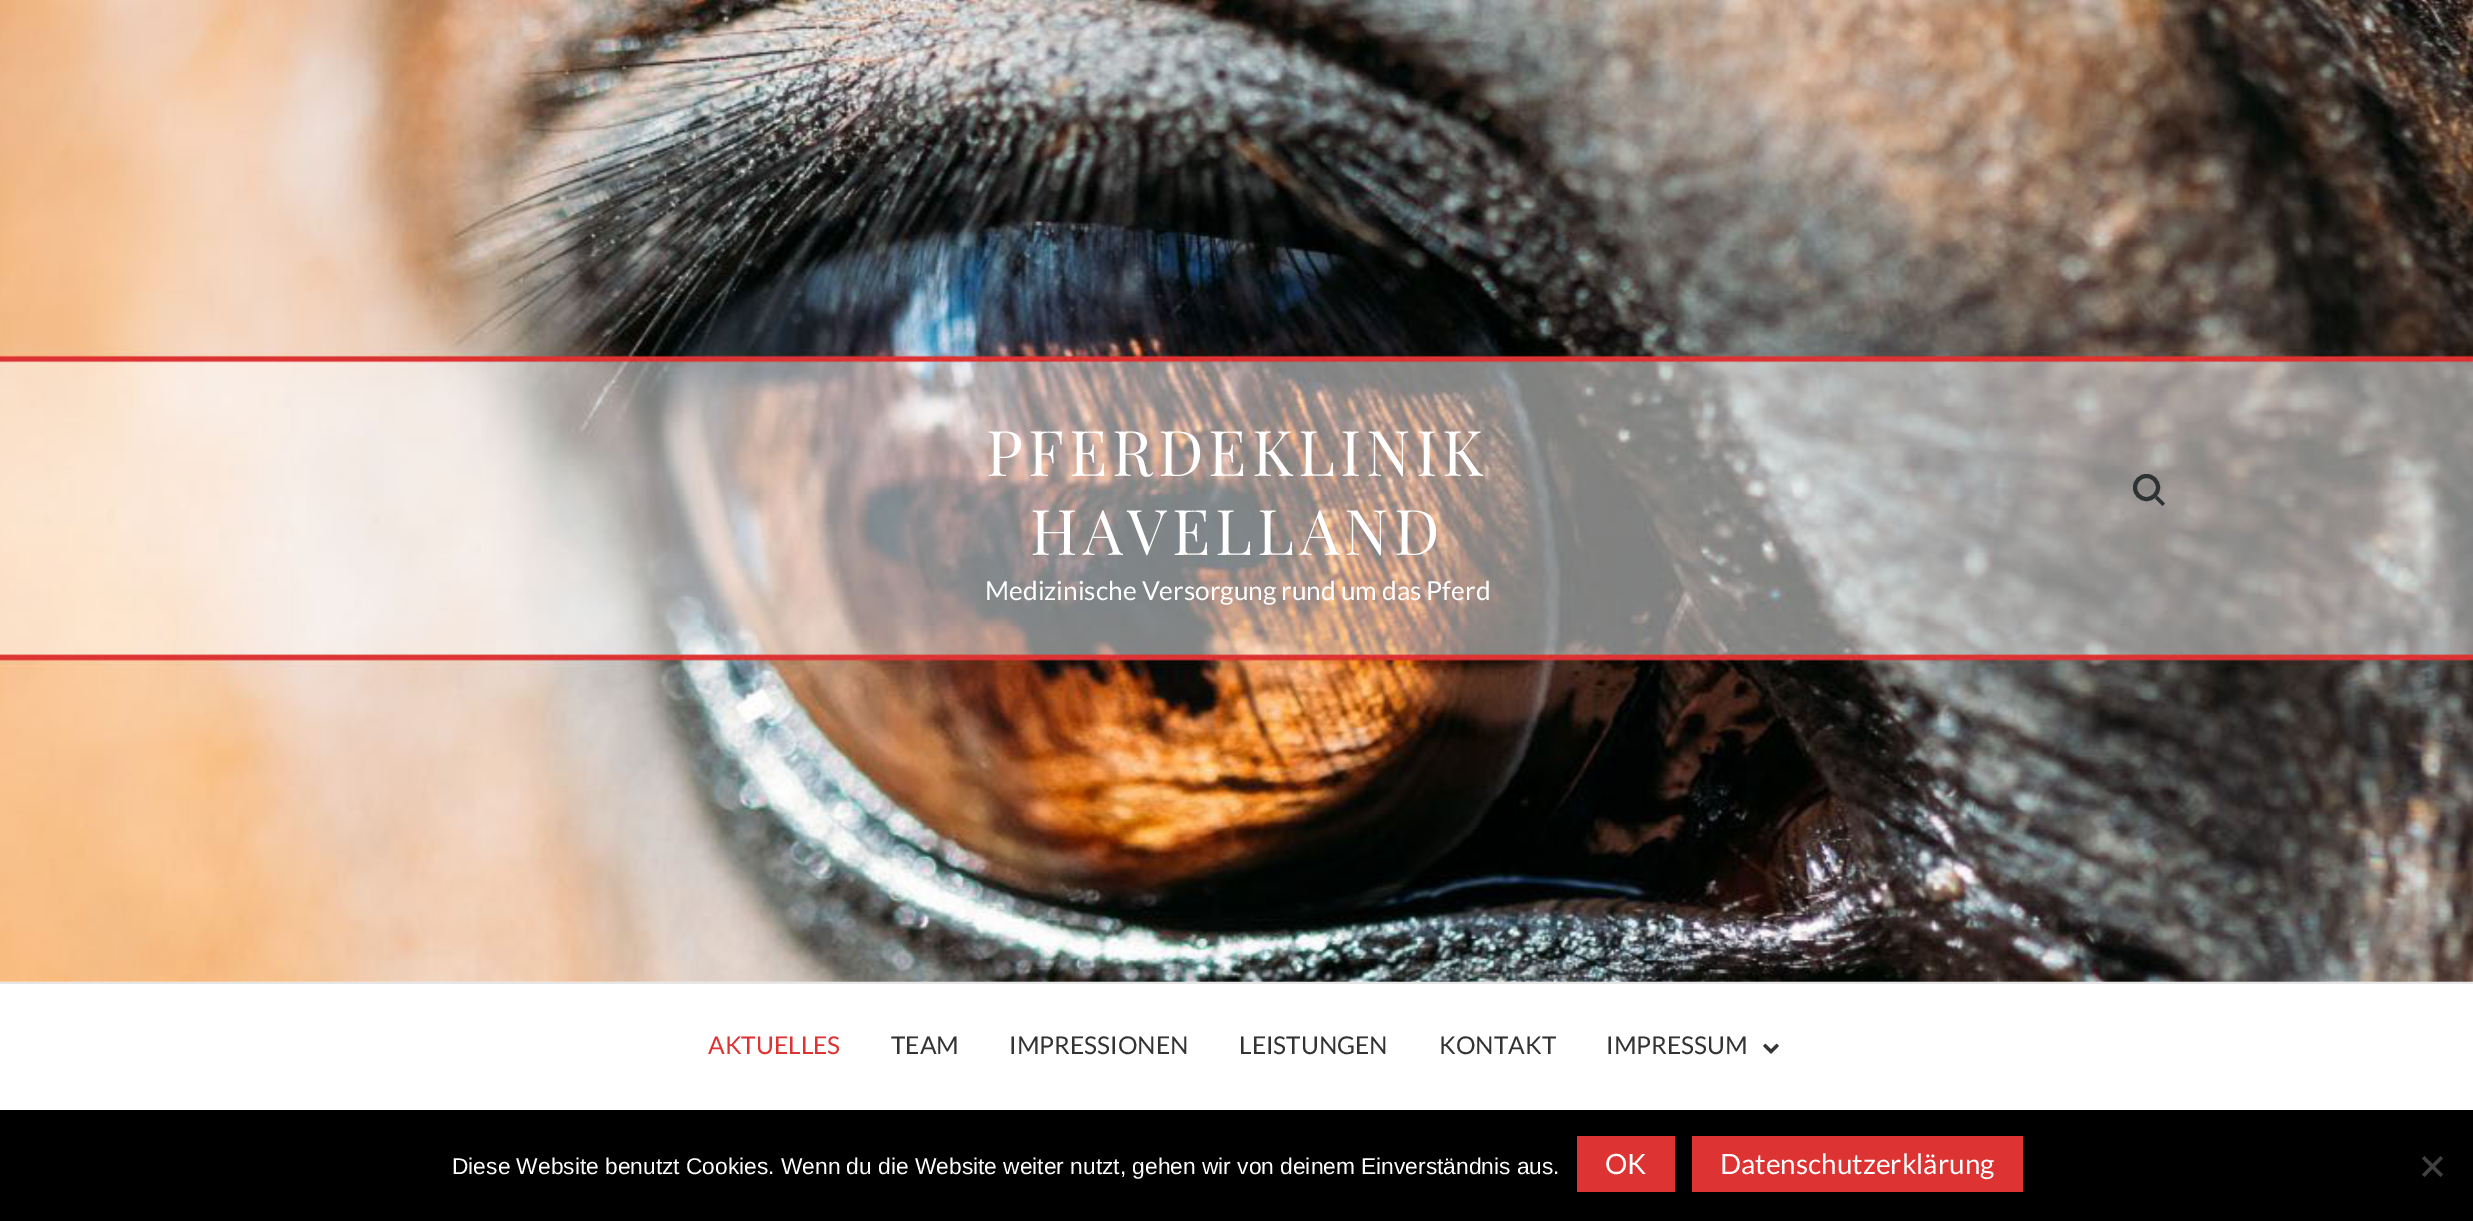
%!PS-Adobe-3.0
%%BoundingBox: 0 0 2473 1221
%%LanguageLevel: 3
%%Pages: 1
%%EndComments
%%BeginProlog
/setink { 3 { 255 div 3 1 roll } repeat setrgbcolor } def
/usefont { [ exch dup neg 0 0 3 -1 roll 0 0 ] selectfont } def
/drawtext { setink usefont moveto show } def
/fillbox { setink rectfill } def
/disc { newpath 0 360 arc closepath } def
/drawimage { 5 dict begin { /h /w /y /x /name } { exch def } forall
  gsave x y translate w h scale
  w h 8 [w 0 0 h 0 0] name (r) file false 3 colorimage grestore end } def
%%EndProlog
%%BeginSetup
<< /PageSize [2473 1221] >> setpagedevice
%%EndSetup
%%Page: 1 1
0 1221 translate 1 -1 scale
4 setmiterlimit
0 0 2473 1221 255 255 255 fillbox
(assets/img1.rgb) 0 0 2473 982 drawimage
/PlayfairDisplay-Regular 63 usefont
986 476 moveto 5 0 (PFERDEKLINIK) ashow
1030 555 moveto 5 0 (HAVELLAND) ashow
(Medizinische Versorgung rund um das Pferd) 985 600 /Lato-Regular 26.25 255 255 255 drawtext
46 50 51 setink
4 setlinewidth
2146.5 487.5 11.5 disc stroke
2157.5 496 moveto 2165 503.5 lineto 2162.5 506 lineto 2155 498.5 lineto closepath fill
0 982 2473 2 230 230 230 fillbox
(AKTUELLES) 708 1054 /Lato-Regular 24.5 221 51 51 drawtext
(TEAM) 891 1054 /Lato-Regular 24.5 51 51 51 drawtext
(IMPRESSIONEN) 1009 1054 /Lato-Regular 24.5 51 51 51 drawtext
(LEISTUNGEN) 1239 1054 /Lato-Regular 24.5 51 51 51 drawtext
(KONTAKT) 1439 1054 /Lato-Regular 24.5 51 51 51 drawtext
(IMPRESSUM) 1606 1054 /Lato-Regular 24.5 51 51 51 drawtext
(assets/img2.rgb) 1763 1043 16 11 drawimage
0 1110 2473 111 0 0 0 fillbox
(Diese Website benutzt Cookies. Wenn du die Website weiter nutzt, gehen wir von deinem Einverständnis aus.) 452 1174 /LiberationSans-Regular 22.75 255 255 255 drawtext
1577 1136 98 56 221 51 51 fillbox
(OK) 1605 1174 /Lato-Regular 28 255 255 255 drawtext
1692 1136 331 56 221 51 51 fillbox
(Datenschutzerklärung) 1720 1174 /Lato-Regular 28 255 255 255 drawtext
64 64 64 setink
2440.5 1156 moveto 2443 1158.5 lineto 2424.5 1177 lineto 2422 1174.5 lineto closepath fill
2422 1158.5 moveto 2424.5 1156 lineto 2443 1174.5 lineto 2440.5 1177 lineto closepath fill
showpage
%%EOF
